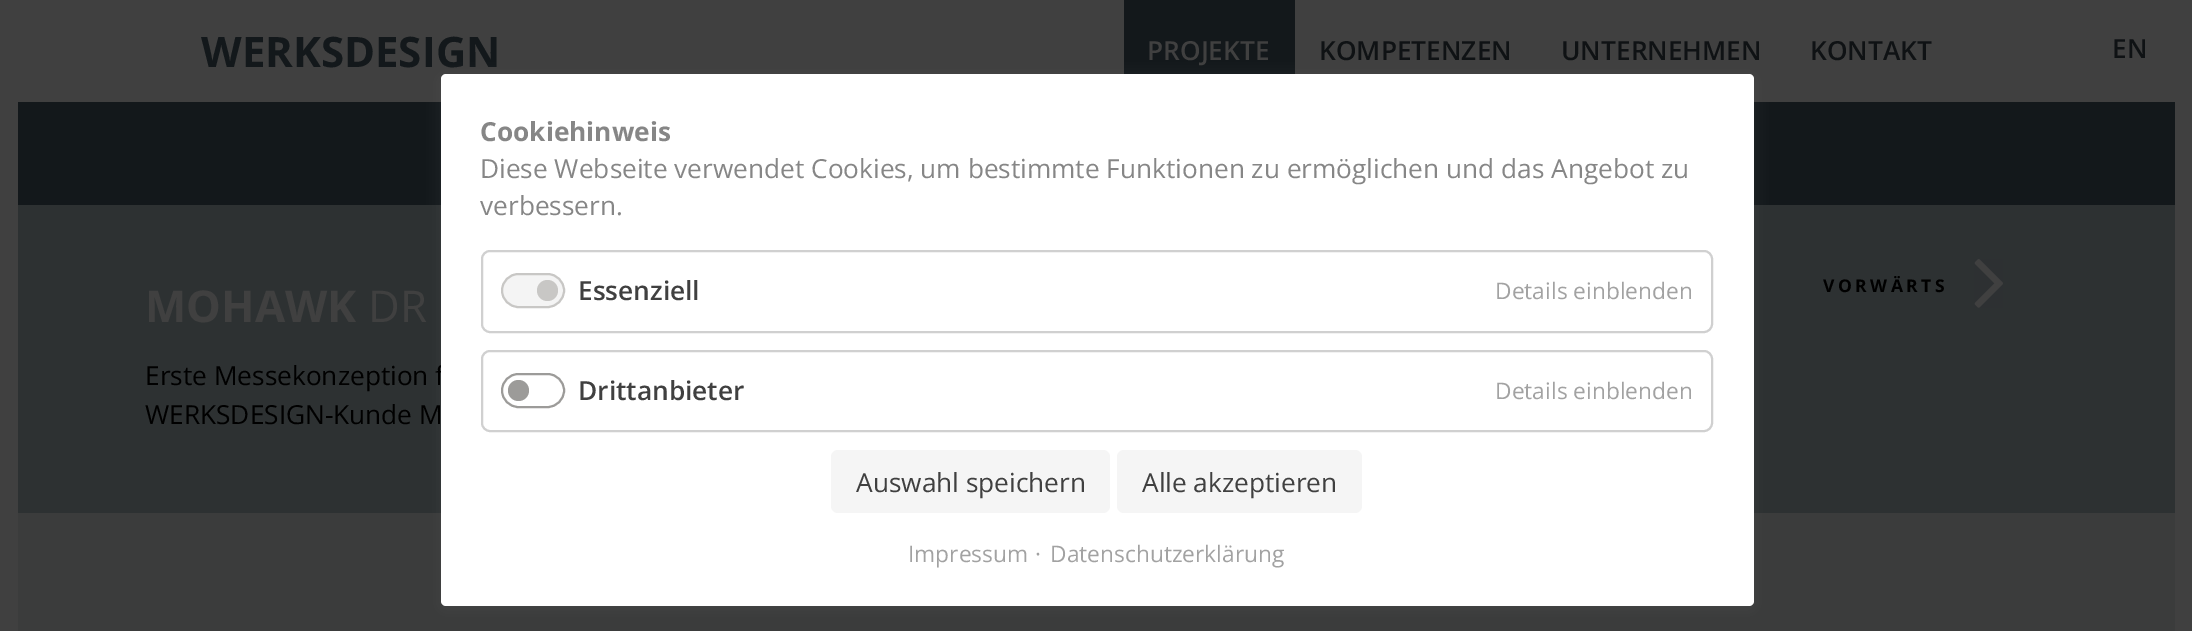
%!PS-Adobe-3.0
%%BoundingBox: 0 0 2192 631
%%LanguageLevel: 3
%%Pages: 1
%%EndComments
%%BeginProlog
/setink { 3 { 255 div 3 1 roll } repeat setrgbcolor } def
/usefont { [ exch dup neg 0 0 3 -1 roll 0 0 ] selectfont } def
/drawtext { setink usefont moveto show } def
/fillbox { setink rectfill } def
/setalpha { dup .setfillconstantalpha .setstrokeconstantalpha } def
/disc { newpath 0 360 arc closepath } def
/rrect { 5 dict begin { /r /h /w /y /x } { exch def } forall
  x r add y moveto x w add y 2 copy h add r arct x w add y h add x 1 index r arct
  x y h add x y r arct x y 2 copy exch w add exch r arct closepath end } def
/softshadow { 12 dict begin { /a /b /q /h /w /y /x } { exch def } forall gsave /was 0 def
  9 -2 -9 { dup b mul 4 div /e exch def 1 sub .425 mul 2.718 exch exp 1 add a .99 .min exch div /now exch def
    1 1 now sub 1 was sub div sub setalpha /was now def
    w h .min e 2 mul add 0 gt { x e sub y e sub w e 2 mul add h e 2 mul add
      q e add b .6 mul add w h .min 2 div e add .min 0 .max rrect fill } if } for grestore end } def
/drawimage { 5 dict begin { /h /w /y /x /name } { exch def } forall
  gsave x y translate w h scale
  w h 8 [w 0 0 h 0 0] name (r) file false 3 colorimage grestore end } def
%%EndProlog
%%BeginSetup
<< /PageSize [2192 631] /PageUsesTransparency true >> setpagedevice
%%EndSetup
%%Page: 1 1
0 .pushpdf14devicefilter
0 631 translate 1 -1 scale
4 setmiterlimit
0 0 2192 631 64 64 64 fillbox
(WERKSDESIGN) 201 67 /OpenSans-Bold 42 19 24 27 drawtext
1124 0 171 74 19 24 27 fillbox
(PROJEKTE) 1147 60 /OpenSans-SemiBold 26.25 64 64 64 drawtext
(KOMPETENZEN) 1319 60 /OpenSans-SemiBold 26.25 15 18 20 drawtext
(UNTERNEHMEN) 1561 60 /OpenSans-SemiBold 26.25 15 18 20 drawtext
(KONTAKT) 1810 60 /OpenSans-SemiBold 26.25 15 18 20 drawtext
(EN) 2112 58 /OpenSans-SemiBold 26.25 15 18 20 drawtext
18 102 2157 103 19 24 27 fillbox
18 513 2157 118 59 60 60 fillbox
18 205 2157 308 45 49 50 fillbox
99 99 99 setink
441 77 1313 532 5 7 0.2 softshadow
(Erste Messekonzeption f) 145 385 /OpenSans-Regular 26.25 0 0 0 drawtext
255 255 255 setink
441 74 1313 532 5 rrect fill
(Cookiehinweis) 480 141 /OpenSans-Bold 26.25 134 134 134 drawtext
(Diese Webseite verwendet Cookies, um bestimmte Funktionen zu ermöglichen und das Angebot zu) 480 178 /OpenSans-Regular 26.25 134 134 134 drawtext
(verbessern.) 480 215 /OpenSans-Regular 26.25 134 134 134 drawtext
208 208 208 setink
2 setlinewidth
482 251 1230 81 8 rrect stroke
244 244 244 setink
502 274 62 33 16.5 rrect gsave fill grestore
200 199 197 setink
stroke
547.5 290.5 10.5 disc fill
(Essenziell) 578 300 /OpenSans-SemiBold 26.25 64 64 64 drawtext
(Details einblenden) 1495 299 /OpenSans-Regular 22.75 162 162 162 drawtext
208 208 208 setink
482 351 1230 80 8 rrect stroke
156 155 153 setink
502 374 62 33 16.5 rrect stroke
518.5 390.5 10.5 disc fill
(Drittanbieter) 578 400 /OpenSans-SemiBold 26.25 64 64 64 drawtext
(Details einblenden) 1495 399 /OpenSans-Regular 22.75 162 162 162 drawtext
245 245 245 setink
831 450 279 63 7 rrect fill
(Auswahl speichern) 856 492 /OpenSans-Regular 26.25 64 64 64 drawtext
245 245 245 setink
1117 450 245 63 7 rrect fill
(Alle akzeptieren) 1142 492 /OpenSans-Regular 26.25 64 64 64 drawtext
(Impressum) 908 562 /OpenSans-Regular 22.75 162 162 162 drawtext
(·) 1035 562 /OpenSans-Regular 22.75 162 162 162 drawtext
(Datenschutzerklärung) 1050 562 /OpenSans-Regular 22.75 162 162 162 drawtext
/OpenSans-Bold 17.5 usefont
0 0 0 setink
1823 292 moveto 3.5 0 (VORWÄRTS) ashow
(assets/img1.rgb) 1974 259 29 49 drawimage
(MOHAWK) 145 322 /OpenSans-Bold 43.75 64 64 64 drawtext
(DR) 368 322 /OpenSans-Regular 43.75 64 64 64 drawtext
(WERKSDESIGN-Kunde M) 145 424 /OpenSans-Regular 26.25 0 0 0 drawtext
.poppdf14devicefilter showpage
%%EOF
